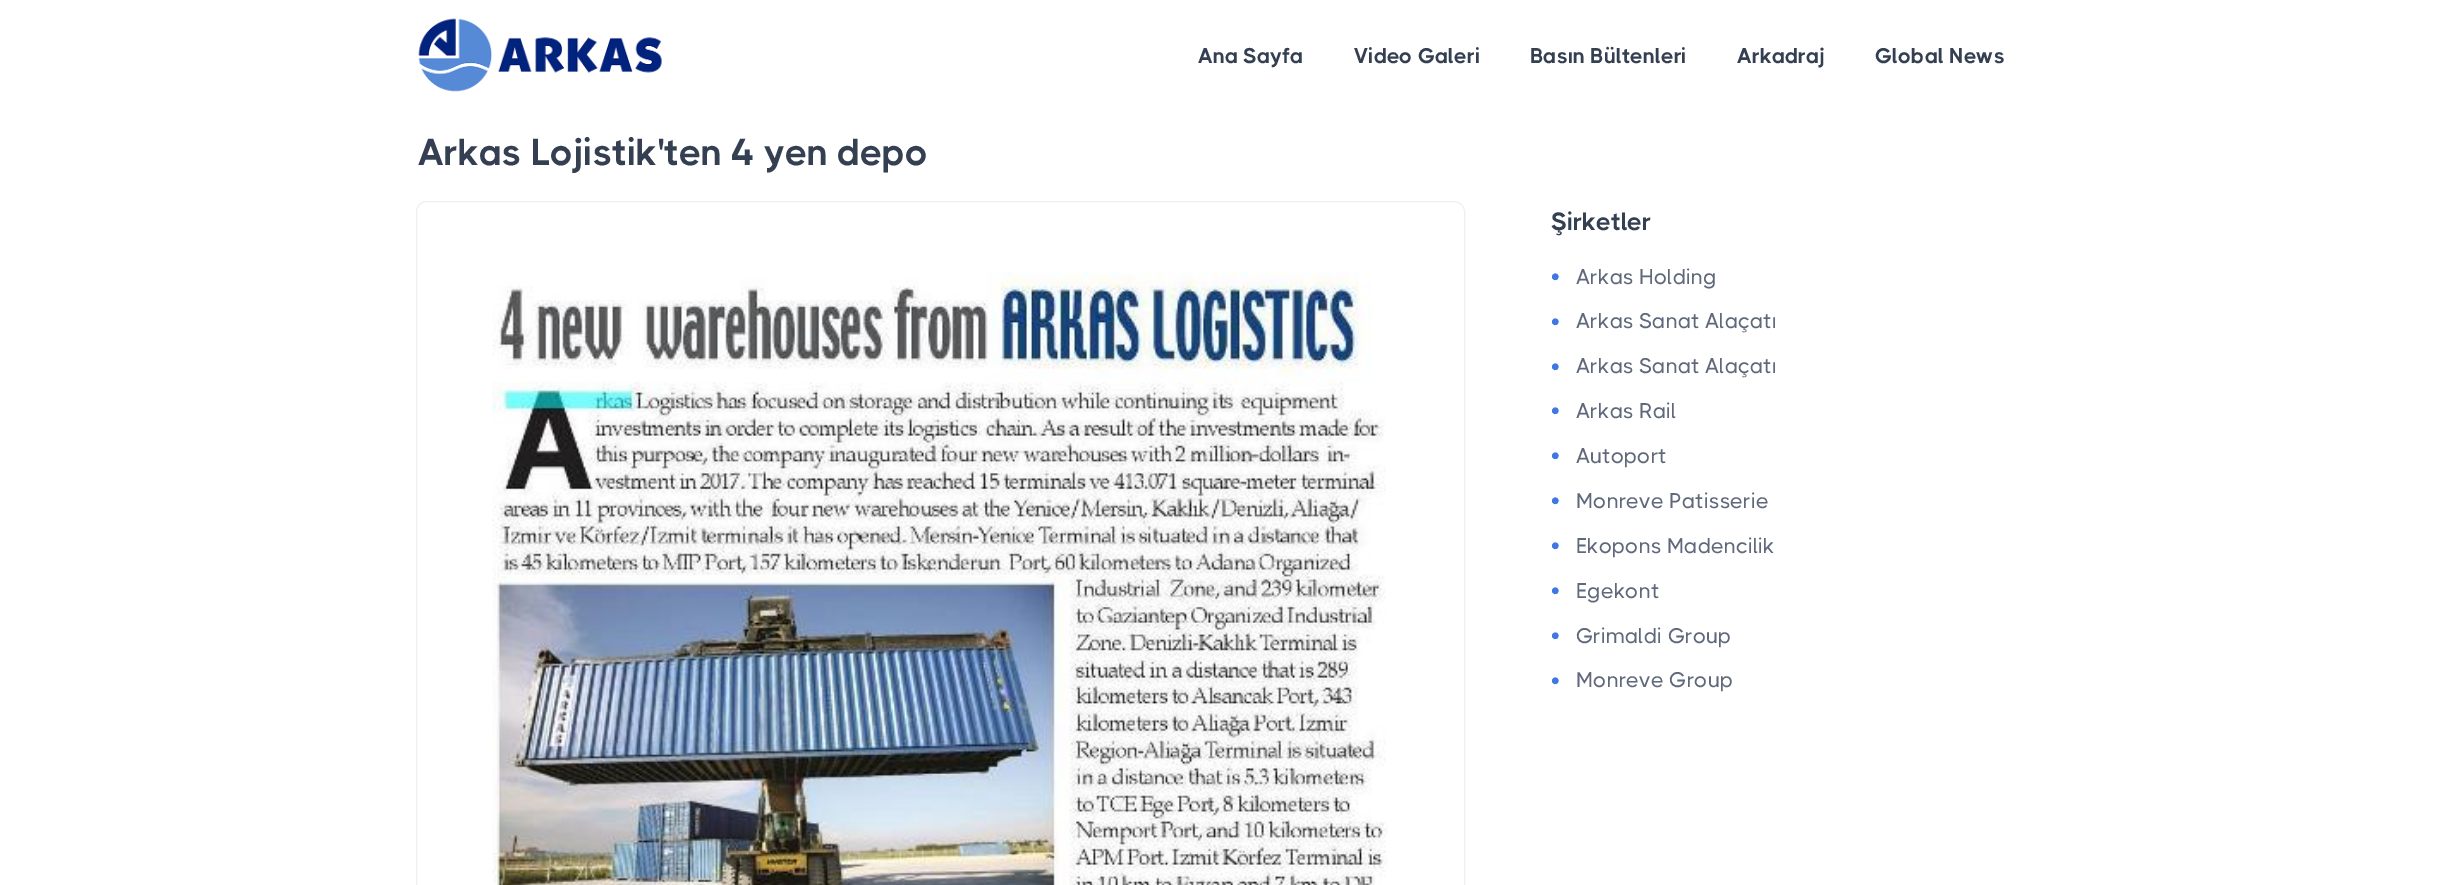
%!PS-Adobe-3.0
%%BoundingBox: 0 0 2447 885
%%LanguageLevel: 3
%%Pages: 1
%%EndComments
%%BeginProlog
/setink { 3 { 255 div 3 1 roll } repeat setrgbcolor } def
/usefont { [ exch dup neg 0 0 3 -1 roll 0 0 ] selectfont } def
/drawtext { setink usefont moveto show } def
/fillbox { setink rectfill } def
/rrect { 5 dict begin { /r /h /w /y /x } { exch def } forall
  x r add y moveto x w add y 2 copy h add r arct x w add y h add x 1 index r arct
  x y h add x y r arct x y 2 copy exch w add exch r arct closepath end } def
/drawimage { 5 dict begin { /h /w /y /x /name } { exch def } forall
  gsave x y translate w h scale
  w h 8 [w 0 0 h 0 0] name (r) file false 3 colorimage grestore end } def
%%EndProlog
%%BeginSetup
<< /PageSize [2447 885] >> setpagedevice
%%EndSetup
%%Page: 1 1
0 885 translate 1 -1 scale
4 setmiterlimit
0 0 2447 885 255 255 255 fillbox
(assets/img1.rgb) 418 18 244 74 drawimage
(Ana Sayfa) 1198 63 /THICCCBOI-Bold 21.25 52 63 82 drawtext
(Video Galeri) 1354 63 /THICCCBOI-Bold 21.25 52 63 82 drawtext
(Basın Bültenleri) 1530 63 /THICCCBOI-Bold 21.25 52 63 82 drawtext
(Arkadraj) 1737 63 /THICCCBOI-Bold 21.25 52 63 82 drawtext
(Global News) 1875 63 /THICCCBOI-Bold 21.25 52 63 82 drawtext
/THICCCBOI-Bold 37.5 usefont
418 165 moveto -0.25 0 (Arkas Lojistik'ten 4 yen depo) ashow
236 239 244 setink
416.5 201.5 1048 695 10.5 rrect stroke
(assets/img2.rgb) 492 272 896 613 drawimage
/THICCCBOI-Bold 25 usefont
52 63 82 setink
1551 230 moveto -0.25 0 (Şirketler) ashow
(•) 1551 285 /LiberationSans-Regular 25 63 120 224 drawtext
(Arkas Holding) 1576 284 /THICCCBOI-Medium 21.25 96 105 123 drawtext
(•) 1551 330 /LiberationSans-Regular 25 63 120 224 drawtext
(Arkas Sanat Alaçatı) 1576 328 /THICCCBOI-Medium 21.25 96 105 123 drawtext
(•) 1551 375 /LiberationSans-Regular 25 63 120 224 drawtext
(Arkas Sanat Alaçatı) 1576 373 /THICCCBOI-Medium 21.25 96 105 123 drawtext
(•) 1551 419 /LiberationSans-Regular 25 63 120 224 drawtext
(Arkas Rail) 1576 418 /THICCCBOI-Medium 21.25 96 105 123 drawtext
(•) 1551 464 /LiberationSans-Regular 25 63 120 224 drawtext
(Autoport) 1576 463 /THICCCBOI-Medium 21.25 96 105 123 drawtext
(•) 1551 509 /LiberationSans-Regular 25 63 120 224 drawtext
(Monreve Patisserie) 1576 508 /THICCCBOI-Medium 21.25 96 105 123 drawtext
(•) 1551 554 /LiberationSans-Regular 25 63 120 224 drawtext
(Ekopons Madencilik) 1576 553 /THICCCBOI-Medium 21.25 96 105 123 drawtext
(•) 1551 599 /LiberationSans-Regular 25 63 120 224 drawtext
(Egekont) 1576 598 /THICCCBOI-Medium 21.25 96 105 123 drawtext
(•) 1551 644 /LiberationSans-Regular 25 63 120 224 drawtext
(Grimaldi Group) 1576 643 /THICCCBOI-Medium 21.25 96 105 123 drawtext
(•) 1551 689 /LiberationSans-Regular 25 63 120 224 drawtext
(Monreve Group) 1576 687 /THICCCBOI-Medium 21.25 96 105 123 drawtext
showpage
%%EOF
